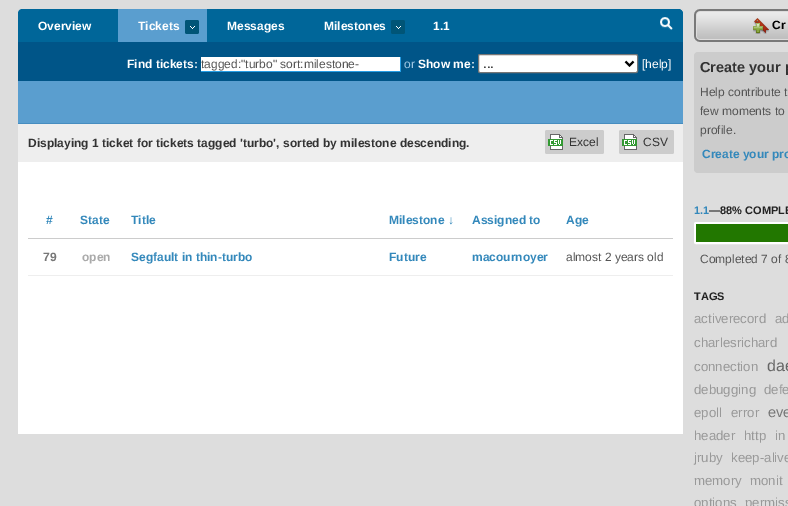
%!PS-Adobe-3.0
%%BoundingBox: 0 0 788 506
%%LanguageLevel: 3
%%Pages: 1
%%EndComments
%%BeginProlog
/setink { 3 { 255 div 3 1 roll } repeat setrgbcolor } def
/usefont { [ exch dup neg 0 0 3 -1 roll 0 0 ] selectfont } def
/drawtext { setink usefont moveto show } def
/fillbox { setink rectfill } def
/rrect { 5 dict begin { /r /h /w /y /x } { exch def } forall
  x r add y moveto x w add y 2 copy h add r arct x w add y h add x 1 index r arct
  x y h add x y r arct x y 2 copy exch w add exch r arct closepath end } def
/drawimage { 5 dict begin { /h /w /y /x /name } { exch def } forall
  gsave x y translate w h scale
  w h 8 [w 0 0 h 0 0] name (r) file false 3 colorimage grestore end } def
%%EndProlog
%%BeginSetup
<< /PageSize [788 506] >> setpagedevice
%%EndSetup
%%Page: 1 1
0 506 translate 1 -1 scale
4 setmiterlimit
0 0 788 506 221 221 221 fillbox
255 255 255 setink
22 9 moveto 679 9 lineto 681 9 683 11 683 13 curveto 683 434 lineto 18 434 lineto 18 13 lineto 18 11 20 9 22 9 curveto closepath fill
0 102 153 setink
22 9 moveto 679 9 lineto 681 9 683 11 683 13 curveto 683 42 lineto 18 42 lineto 18 13 lineto 18 11 20 9 22 9 curveto closepath fill
(Overview) 38 30 /LiberationSans-Bold 12 255 255 255 drawtext
118 9 89 33 90 158 207 fillbox
(Tickets) 138 30 /LiberationSans-Bold 12 255 255 255 drawtext
0 85 119 setink
185 20 14 14 2 rrect fill
(assets/img1.rgb) 190 26 5 3 drawimage
(Messages) 227 30 /LiberationSans-Bold 12 255 255 255 drawtext
(Milestones) 324 30 /LiberationSans-Bold 12 255 255 255 drawtext
0 85 119 setink
391 20 14 14 2 rrect fill
(assets/img1.rgb) 396 26 5 3 drawimage
(1.1) 433 30 /LiberationSans-Bold 12 255 255 255 drawtext
(assets/img2.rgb) 681 9 2 2 drawimage
(assets/img3.rgb) 660 17 13 13 drawimage
18 42 665 39 0 85 136 fillbox
(Find tickets:) 127 68 /LiberationSans-Bold 12 255 255 255 drawtext
201 57 199 14 255 255 255 fillbox
400 57 1 15 37 158 230 fillbox
201 71 200 1 37 158 230 fillbox
(tagged:"turbo" sort:milestone-) 201 68 /LiberationSans-Regular 12 85 85 85 drawtext
(or) 404 68 /LiberationSans-Regular 12 159 199 227 drawtext
(Show me:) 418 68 /LiberationSans-Bold 12 255 255 255 drawtext
478.5 54.5 159 18 1.5 rrect gsave fill grestore
118 118 118 setink
stroke
0 0 0 setink
2 setlinewidth
625.5 61.5 moveto 629.5 65.5 lineto 633.5 61.5 lineto stroke
(...) 483 68 /LiberationSans-Regular 13 0 0 0 drawtext
([help]) 642 68 /LiberationSans-Regular 12 255 255 255 drawtext
18 81 665 42 90 158 207 fillbox
18 123 665 1 70 141 192 fillbox
18 124 665 38 238 238 238 fillbox
(Displaying 1 ticket for tickets tagged 'turbo', sorted by milestone descending.) 28 147 /LiberationSans-Bold 12 51 51 51 drawtext
204 204 204 setink
545 130 59 24 2 rrect fill
(assets/img4.rgb) 548 134 15 16 drawimage
(Excel) 569 146 /LiberationSans-Regular 12 51 51 51 drawtext
204 204 204 setink
619 130 55 24 2 rrect fill
(assets/img4.rgb) 622 134 15 16 drawimage
(CSV) 643 146 /LiberationSans-Regular 12 51 51 51 drawtext
28 238 645 1 204 204 204 fillbox
(#) 46 224 /LiberationSans-Bold 12 51 136 187 drawtext
(State) 80 224 /LiberationSans-Bold 12 51 136 187 drawtext
(Title) 131 224 /LiberationSans-Bold 12 51 136 187 drawtext
(Milestone ↓) 389 224 /LiberationSans-Bold 12 51 136 187 drawtext
(Assigned to) 472 224 /LiberationSans-Bold 12 51 136 187 drawtext
(Age) 566 224 /LiberationSans-Bold 12 51 136 187 drawtext
28 275 645 1 238 238 238 fillbox
(79) 43 261 /LiberationSans-Bold 12 119 119 119 drawtext
(open) 82 261 /LiberationSans-Bold 12 170 170 170 drawtext
(Segfault in thin-turbo) 131 261 /LiberationSans-Bold 12 51 136 187 drawtext
(Future) 389 261 /LiberationSans-Bold 12 51 136 187 drawtext
(macournoyer) 472 261 /LiberationSans-Bold 12 51 136 187 drawtext
(almost 2 years old) 566 261 /LiberationSans-Regular 12 85 85 85 drawtext
(assets/img5.rgb) 694 9 94 33 drawimage
(assets/img6.rgb) 753 18 16 16 drawimage
(Cr) 772 29 /LiberationSans-Bold 12 0 0 0 drawtext
204 204 204 setink
694 52 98 121 4 rrect fill
(Create your p) 700 72 /LiberationSans-Bold 14.5 51 51 51 drawtext
(Help contribute t) 700 96 /LiberationSans-Regular 12 85 85 85 drawtext
(few moments to) 700 115 /LiberationSans-Regular 12 85 85 85 drawtext
(profile.) 700 134 /LiberationSans-Regular 12 85 85 85 drawtext
(Create your pro) 702 158 /LiberationSans-Bold 12 51 136 187 drawtext
(1.1) 694 214 /LiberationSans-Bold 11 51 136 187 drawtext
(—88% COMPLE) 709 214 /LiberationSans-Bold 11 34 34 34 drawtext
255 255 255 setink
695 223 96 20 1 rrect stroke
696 224 92 18 34 119 0 fillbox
(Completed 7 of 8) 700 263 /LiberationSans-Regular 12 85 85 85 drawtext
(TAGS) 694 300 /LiberationSans-Bold 11 34 34 34 drawtext
(activerecord) 694 323 /LiberationSans-Regular 13.25 153 153 153 drawtext
(ad) 775 323 /LiberationSans-Regular 13.25 153 153 153 drawtext
(charlesrichard) 694 347 /LiberationSans-Regular 13.25 153 153 153 drawtext
(connection) 694 371 /LiberationSans-Regular 13.25 153 153 153 drawtext
(dae) 767 371 /LiberationSans-Regular 16 102 102 102 drawtext
(debugging) 694 394 /LiberationSans-Regular 13.25 153 153 153 drawtext
(defe) 764 394 /LiberationSans-Regular 13.25 153 153 153 drawtext
(epoll) 694 417 /LiberationSans-Regular 13.25 153 153 153 drawtext
(error) 731 417 /LiberationSans-Regular 13.25 153 153 153 drawtext
(eve) 768 417 /LiberationSans-Regular 14.5 119 119 119 drawtext
(header) 694 440 /LiberationSans-Regular 13.25 153 153 153 drawtext
(http) 744 440 /LiberationSans-Regular 13.25 153 153 153 drawtext
(in) 775 440 /LiberationSans-Regular 13.25 153 153 153 drawtext
(jruby) 694 462 /LiberationSans-Regular 13.25 153 153 153 drawtext
(keep-alive) 731 462 /LiberationSans-Regular 13.25 153 153 153 drawtext
(memory) 694 485 /LiberationSans-Regular 13.25 153 153 153 drawtext
(monit) 750 485 /LiberationSans-Regular 13.25 153 153 153 drawtext
(options) 694 507 /LiberationSans-Regular 13.25 153 153 153 drawtext
(permiss) 745 507 /LiberationSans-Regular 13.25 153 153 153 drawtext
showpage
%%EOF
